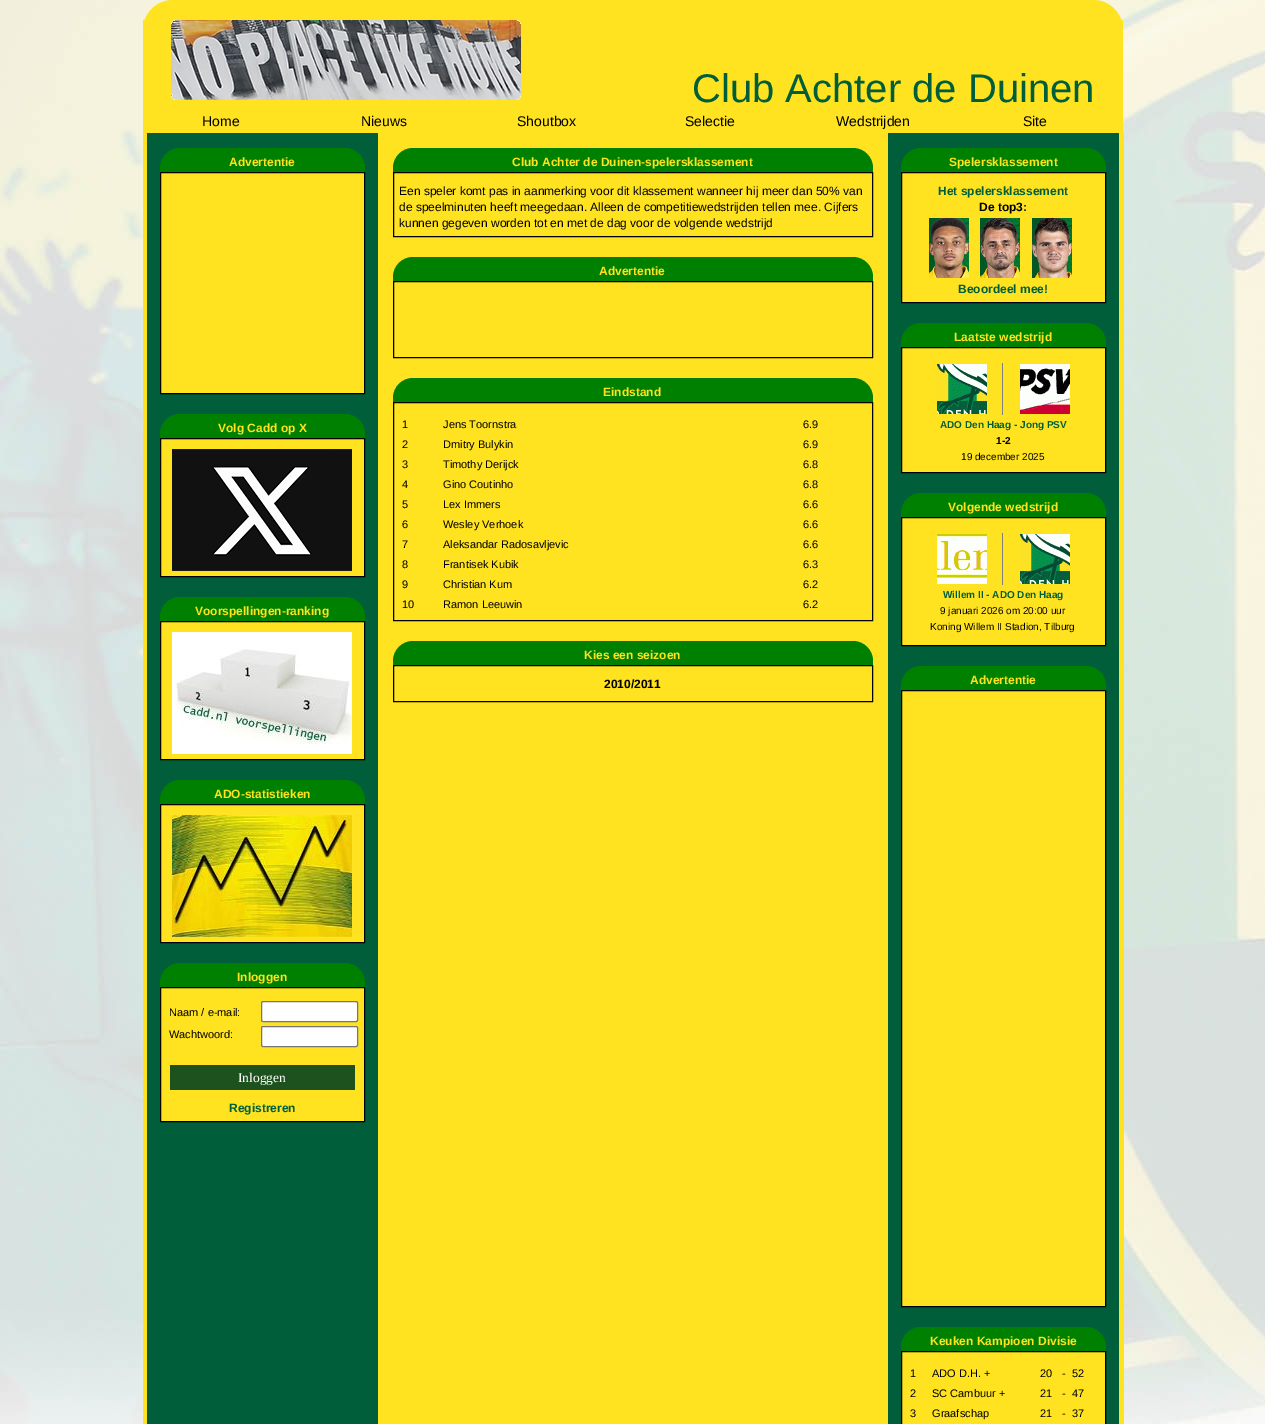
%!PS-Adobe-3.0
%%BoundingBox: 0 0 1265 1424
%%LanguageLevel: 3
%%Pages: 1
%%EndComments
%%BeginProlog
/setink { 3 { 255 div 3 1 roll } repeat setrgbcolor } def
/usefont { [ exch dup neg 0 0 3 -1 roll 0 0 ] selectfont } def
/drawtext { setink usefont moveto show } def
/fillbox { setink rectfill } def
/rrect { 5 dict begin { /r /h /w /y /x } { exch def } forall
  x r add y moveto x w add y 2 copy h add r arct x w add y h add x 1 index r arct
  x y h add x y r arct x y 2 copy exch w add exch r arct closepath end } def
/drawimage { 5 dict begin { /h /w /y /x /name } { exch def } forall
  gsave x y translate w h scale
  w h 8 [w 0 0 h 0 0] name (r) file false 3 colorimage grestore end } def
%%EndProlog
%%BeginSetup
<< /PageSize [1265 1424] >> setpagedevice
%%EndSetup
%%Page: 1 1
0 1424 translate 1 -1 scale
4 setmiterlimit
0 0 1265 1424 255 255 255 fillbox
(assets/img1.rgb) 0 0 1265 1424 drawimage
255 227 32 setink
143 0 980 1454 30 rrect fill
143 20 980 10 255 227 32 fillbox
(assets/img2.rgb) 171 20 350 80 drawimage
(assets/img3.rgb) 171 20 4 4 drawimage
(assets/img4.rgb) 517 20 4 4 drawimage
(assets/img5.rgb) 171 96 4 4 drawimage
(assets/img6.rgb) 517 96 4 4 drawimage
(Club Achter de Duinen) 692 102 /LiberationSans-Regular 40 0 95 58 drawtext
(Home) 202 126 /LiberationSans-Regular 14 0 0 0 drawtext
(Nieuws) 361 126 /LiberationSans-Regular 14 0 0 0 drawtext
(Shoutbox) 517 126 /LiberationSans-Regular 14 0 0 0 drawtext
(Selectie) 685 126 /LiberationSans-Regular 14 0 0 0 drawtext
(Wedstrijden) 836 126 /LiberationSans-Regular 14 0 0 0 drawtext
(Site) 1023 126 /LiberationSans-Regular 14 0 0 0 drawtext
(assets/img7.rgb) 147 133 977 1291 drawimage
0 128 0 setink
180 148 moveto 345 148 lineto 356 148 365 157 365 168 curveto 365 172 lineto 160 172 lineto 160 168 lineto 160 157 169 148 180 148 curveto closepath fill
(Advertentie) 229 166 /LiberationSans-Bold 12 255 227 32 drawtext
160.5 172.5 moveto 364.5 172.5 lineto 364.5 393.5 lineto 160.5 393.5 lineto closepath gsave fill grestore
0 0 0 setink
stroke
0 128 0 setink
180 414 moveto 345 414 lineto 356 414 365 423 365 434 curveto 365 438 lineto 160 438 lineto 160 434 lineto 160 423 169 414 180 414 curveto closepath fill
(Volg Cadd op X) 218 432 /LiberationSans-Bold 12 255 227 32 drawtext
160.5 438.5 moveto 364.5 438.5 lineto 364.5 576.5 lineto 160.5 576.5 lineto closepath gsave fill grestore
0 0 0 setink
stroke
(assets/img8.rgb) 172 449 180 122 drawimage
0 128 0 setink
180 597 moveto 345 597 lineto 356 597 365 606 365 617 curveto 365 621 lineto 160 621 lineto 160 617 lineto 160 606 169 597 180 597 curveto closepath fill
(Voorspellingen-ranking) 195 615 /LiberationSans-Bold 12 255 227 32 drawtext
160.5 621.5 moveto 364.5 621.5 lineto 364.5 759.5 lineto 160.5 759.5 lineto closepath gsave fill grestore
0 0 0 setink
stroke
(assets/img9.rgb) 172 632 180 122 drawimage
0 128 0 setink
180 780 moveto 345 780 lineto 356 780 365 789 365 800 curveto 365 804 lineto 160 804 lineto 160 800 lineto 160 789 169 780 180 780 curveto closepath fill
(ADO-statistieken) 214 798 /LiberationSans-Bold 12 255 227 32 drawtext
160.5 804.5 moveto 364.5 804.5 lineto 364.5 942.5 lineto 160.5 942.5 lineto closepath gsave fill grestore
0 0 0 setink
stroke
(assets/img10.rgb) 172 815 180 122 drawimage
0 128 0 setink
180 963 moveto 345 963 lineto 356 963 365 972 365 983 curveto 365 987 lineto 160 987 lineto 160 983 lineto 160 972 169 963 180 963 curveto closepath fill
(Inloggen) 237 981 /LiberationSans-Bold 12 255 227 32 drawtext
160.5 987.5 moveto 364.5 987.5 lineto 364.5 1121.5 lineto 160.5 1121.5 lineto closepath gsave fill grestore
0 0 0 setink
stroke
(Naam / e-mail:) 169 1016 /LiberationSans-Regular 11 0 0 0 drawtext
255 255 255 setink
261.5 1001.5 96 20 1.5 rrect gsave fill grestore
118 118 118 setink
stroke
(Wachtwoord:) 169 1038 /LiberationSans-Regular 11 0 0 0 drawtext
255 255 255 setink
261.5 1026.5 96 20 1.5 rrect gsave fill grestore
118 118 118 setink
stroke
170 1065 185 25 29 82 30 fillbox
(Inloggen) 238 1082 /LiberationSerif-Regular 13.5 255 255 255 drawtext
(Registreren) 229 1112 /LiberationSans-Bold 12 0 95 58 drawtext
0 128 0 setink
413 148 moveto 853 148 lineto 864 148 873 157 873 168 curveto 873 172 lineto 393 172 lineto 393 168 lineto 393 157 402 148 413 148 curveto closepath fill
(Club Achter de Duinen-spelersklassement) 512 166 /LiberationSans-Bold 12 255 227 32 drawtext
0 0 0 setink
393.5 172.5 479 64 rectstroke
(Een speler komt pas in aanmerking voor dit klassement wanneer hij meer dan 50% van) 399 195 /LiberationSans-Regular 12 0 0 0 drawtext
(de speelminuten heeft meegedaan. Alleen de competitiewedstrijden tellen mee. Cijfers) 399 211 /LiberationSans-Regular 12 0 0 0 drawtext
(kunnen gegeven worden tot en met de dag voor de volgende wedstrijd) 399 227 /LiberationSans-Regular 12 0 0 0 drawtext
0 128 0 setink
413 257 moveto 853 257 lineto 864 257 873 266 873 277 curveto 873 281 lineto 393 281 lineto 393 277 lineto 393 266 402 257 413 257 curveto closepath fill
(Advertentie) 599 275 /LiberationSans-Bold 12 255 227 32 drawtext
0 0 0 setink
393.5 281.5 479 76 rectstroke
0 128 0 setink
413 378 moveto 853 378 lineto 864 378 873 387 873 398 curveto 873 402 lineto 393 402 lineto 393 398 lineto 393 387 402 378 413 378 curveto closepath fill
(Eindstand) 603 396 /LiberationSans-Bold 12 255 227 32 drawtext
0 0 0 setink
393.5 402.5 479 218 rectstroke
(1) 402 428 /LiberationSans-Regular 11 0 0 0 drawtext
(Jens Toornstra) 443 428 /LiberationSans-Regular 11 0 0 0 drawtext
(6.9) 803 428 /LiberationSans-Regular 11 0 0 0 drawtext
(2) 402 448 /LiberationSans-Regular 11 0 0 0 drawtext
(Dmitry Bulykin) 443 448 /LiberationSans-Regular 11 0 0 0 drawtext
(6.9) 803 448 /LiberationSans-Regular 11 0 0 0 drawtext
(3) 402 468 /LiberationSans-Regular 11 0 0 0 drawtext
(Timothy Derijck) 443 468 /LiberationSans-Regular 11 0 0 0 drawtext
(6.8) 803 468 /LiberationSans-Regular 11 0 0 0 drawtext
(4) 402 488 /LiberationSans-Regular 11 0 0 0 drawtext
(Gino Coutinho) 443 488 /LiberationSans-Regular 11 0 0 0 drawtext
(6.8) 803 488 /LiberationSans-Regular 11 0 0 0 drawtext
(5) 402 508 /LiberationSans-Regular 11 0 0 0 drawtext
(Lex Immers) 443 508 /LiberationSans-Regular 11 0 0 0 drawtext
(6.6) 803 508 /LiberationSans-Regular 11 0 0 0 drawtext
(6) 402 528 /LiberationSans-Regular 11 0 0 0 drawtext
(Wesley Verhoek) 443 528 /LiberationSans-Regular 11 0 0 0 drawtext
(6.6) 803 528 /LiberationSans-Regular 11 0 0 0 drawtext
(7) 402 548 /LiberationSans-Regular 11 0 0 0 drawtext
(Aleksandar Radosavljevic) 443 548 /LiberationSans-Regular 11 0 0 0 drawtext
(6.6) 803 548 /LiberationSans-Regular 11 0 0 0 drawtext
(8) 402 568 /LiberationSans-Regular 11 0 0 0 drawtext
(Frantisek Kubik) 443 568 /LiberationSans-Regular 11 0 0 0 drawtext
(6.3) 803 568 /LiberationSans-Regular 11 0 0 0 drawtext
(9) 402 588 /LiberationSans-Regular 11 0 0 0 drawtext
(Christian Kum) 443 588 /LiberationSans-Regular 11 0 0 0 drawtext
(6.2) 803 588 /LiberationSans-Regular 11 0 0 0 drawtext
(10) 402 608 /LiberationSans-Regular 11 0 0 0 drawtext
(Ramon Leeuwin) 443 608 /LiberationSans-Regular 11 0 0 0 drawtext
(6.2) 803 608 /LiberationSans-Regular 11 0 0 0 drawtext
0 128 0 setink
413 641 moveto 853 641 lineto 864 641 873 650 873 661 curveto 873 665 lineto 393 665 lineto 393 661 lineto 393 650 402 641 413 641 curveto closepath fill
(Kies een seizoen) 584 659 /LiberationSans-Bold 12 255 227 32 drawtext
0 0 0 setink
393.5 665.5 479 36 rectstroke
(2010/2011) 604 688 /LiberationSans-Bold 12 0 0 0 drawtext
0 128 0 setink
921 148 moveto 1086 148 lineto 1097 148 1106 157 1106 168 curveto 1106 172 lineto 901 172 lineto 901 168 lineto 901 157 910 148 921 148 curveto closepath fill
(Spelersklassement) 949 166 /LiberationSans-Bold 12 255 227 32 drawtext
901.5 172.5 moveto 1105.5 172.5 lineto 1105.5 302.5 lineto 901.5 302.5 lineto closepath gsave fill grestore
0 0 0 setink
stroke
(Het spelersklassement) 938 195 /LiberationSans-Bold 12 0 95 58 drawtext
(De top3:) 979 211 /LiberationSans-Bold 12 0 0 0 drawtext
(assets/img11.rgb) 929 218 40 60 drawimage
(assets/img12.rgb) 980 218 40 60 drawimage
(assets/img13.rgb) 1032 218 40 60 drawimage
(Beoordeel mee!) 958 293 /LiberationSans-Bold 12 0 95 58 drawtext
0 128 0 setink
921 323 moveto 1086 323 lineto 1097 323 1106 332 1106 343 curveto 1106 347 lineto 901 347 lineto 901 343 lineto 901 332 910 323 921 323 curveto closepath fill
(Laatste wedstrijd) 954 341 /LiberationSans-Bold 12 255 227 32 drawtext
901.5 347.5 moveto 1105.5 347.5 lineto 1105.5 472.5 lineto 901.5 472.5 lineto closepath gsave fill grestore
0 0 0 setink
stroke
1002 363 1 52 128 128 128 fillbox
(assets/img14.rgb) 937 364 50 50 drawimage
(assets/img15.rgb) 1020 364 50 50 drawimage
(ADO Den Haag - Jong PSV) 940 428 /LiberationSans-Bold 10 0 95 58 drawtext
(1-2) 996 444 /LiberationSans-Bold 10 0 0 0 drawtext
(19 december 2025) 961 460 /LiberationSans-Regular 10 0 0 0 drawtext
0 128 0 setink
921 493 moveto 1086 493 lineto 1097 493 1106 502 1106 513 curveto 1106 517 lineto 901 517 lineto 901 513 lineto 901 502 910 493 921 493 curveto closepath fill
(Volgende wedstrijd) 948 511 /LiberationSans-Bold 12 255 227 32 drawtext
901.5 517.5 moveto 1105.5 517.5 lineto 1105.5 645.5 lineto 901.5 645.5 lineto closepath gsave fill grestore
0 0 0 setink
stroke
1002 533 1 52 128 128 128 fillbox
(assets/img16.rgb) 937 534 50 50 drawimage
(assets/img14.rgb) 1020 534 50 50 drawimage
(Willem II - ADO Den Haag) 943 598 /LiberationSans-Bold 10 0 95 58 drawtext
(9 januari 2026 om 20:00 uur) 940 614 /LiberationSans-Regular 10 0 0 0 drawtext
(Koning Willem II Stadion, Tilburg) 930 630 /LiberationSans-Regular 10 0 0 0 drawtext
0 128 0 setink
921 666 moveto 1086 666 lineto 1097 666 1106 675 1106 686 curveto 1106 690 lineto 901 690 lineto 901 686 lineto 901 675 910 666 921 666 curveto closepath fill
(Advertentie) 970 684 /LiberationSans-Bold 12 255 227 32 drawtext
901.5 690.5 moveto 1105.5 690.5 lineto 1105.5 1306.5 lineto 901.5 1306.5 lineto closepath gsave fill grestore
0 0 0 setink
stroke
0 128 0 setink
921 1327 moveto 1086 1327 lineto 1097 1327 1106 1336 1106 1347 curveto 1106 1351 lineto 901 1351 lineto 901 1347 lineto 901 1336 910 1327 921 1327 curveto closepath fill
(Keuken Kampioen Divisie) 930 1345 /LiberationSans-Bold 12 255 227 32 drawtext
901.5 1351.5 moveto 1105.5 1351.5 lineto 1105.5 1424.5 lineto 901.5 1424.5 lineto closepath gsave fill grestore
0 0 0 setink
stroke
(1) 910 1377 /LiberationSans-Regular 11 0 0 0 drawtext
(ADO D.H. +) 932 1377 /LiberationSans-Regular 11 0 0 0 drawtext
(20) 1040 1377 /LiberationSans-Regular 11 0 0 0 drawtext
(-) 1062 1377 /LiberationSans-Regular 11 0 0 0 drawtext
(52) 1072 1377 /LiberationSans-Regular 11 0 0 0 drawtext
(2) 910 1397 /LiberationSans-Regular 11 0 0 0 drawtext
(SC Cambuur +) 932 1397 /LiberationSans-Regular 11 0 0 0 drawtext
(21) 1040 1397 /LiberationSans-Regular 11 0 0 0 drawtext
(-) 1062 1397 /LiberationSans-Regular 11 0 0 0 drawtext
(47) 1072 1397 /LiberationSans-Regular 11 0 0 0 drawtext
(3) 910 1417 /LiberationSans-Regular 11 0 0 0 drawtext
(Graafschap) 932 1417 /LiberationSans-Regular 11 0 0 0 drawtext
(21) 1040 1417 /LiberationSans-Regular 11 0 0 0 drawtext
(-) 1062 1417 /LiberationSans-Regular 11 0 0 0 drawtext
(37) 1072 1417 /LiberationSans-Regular 11 0 0 0 drawtext
showpage
%%EOF
